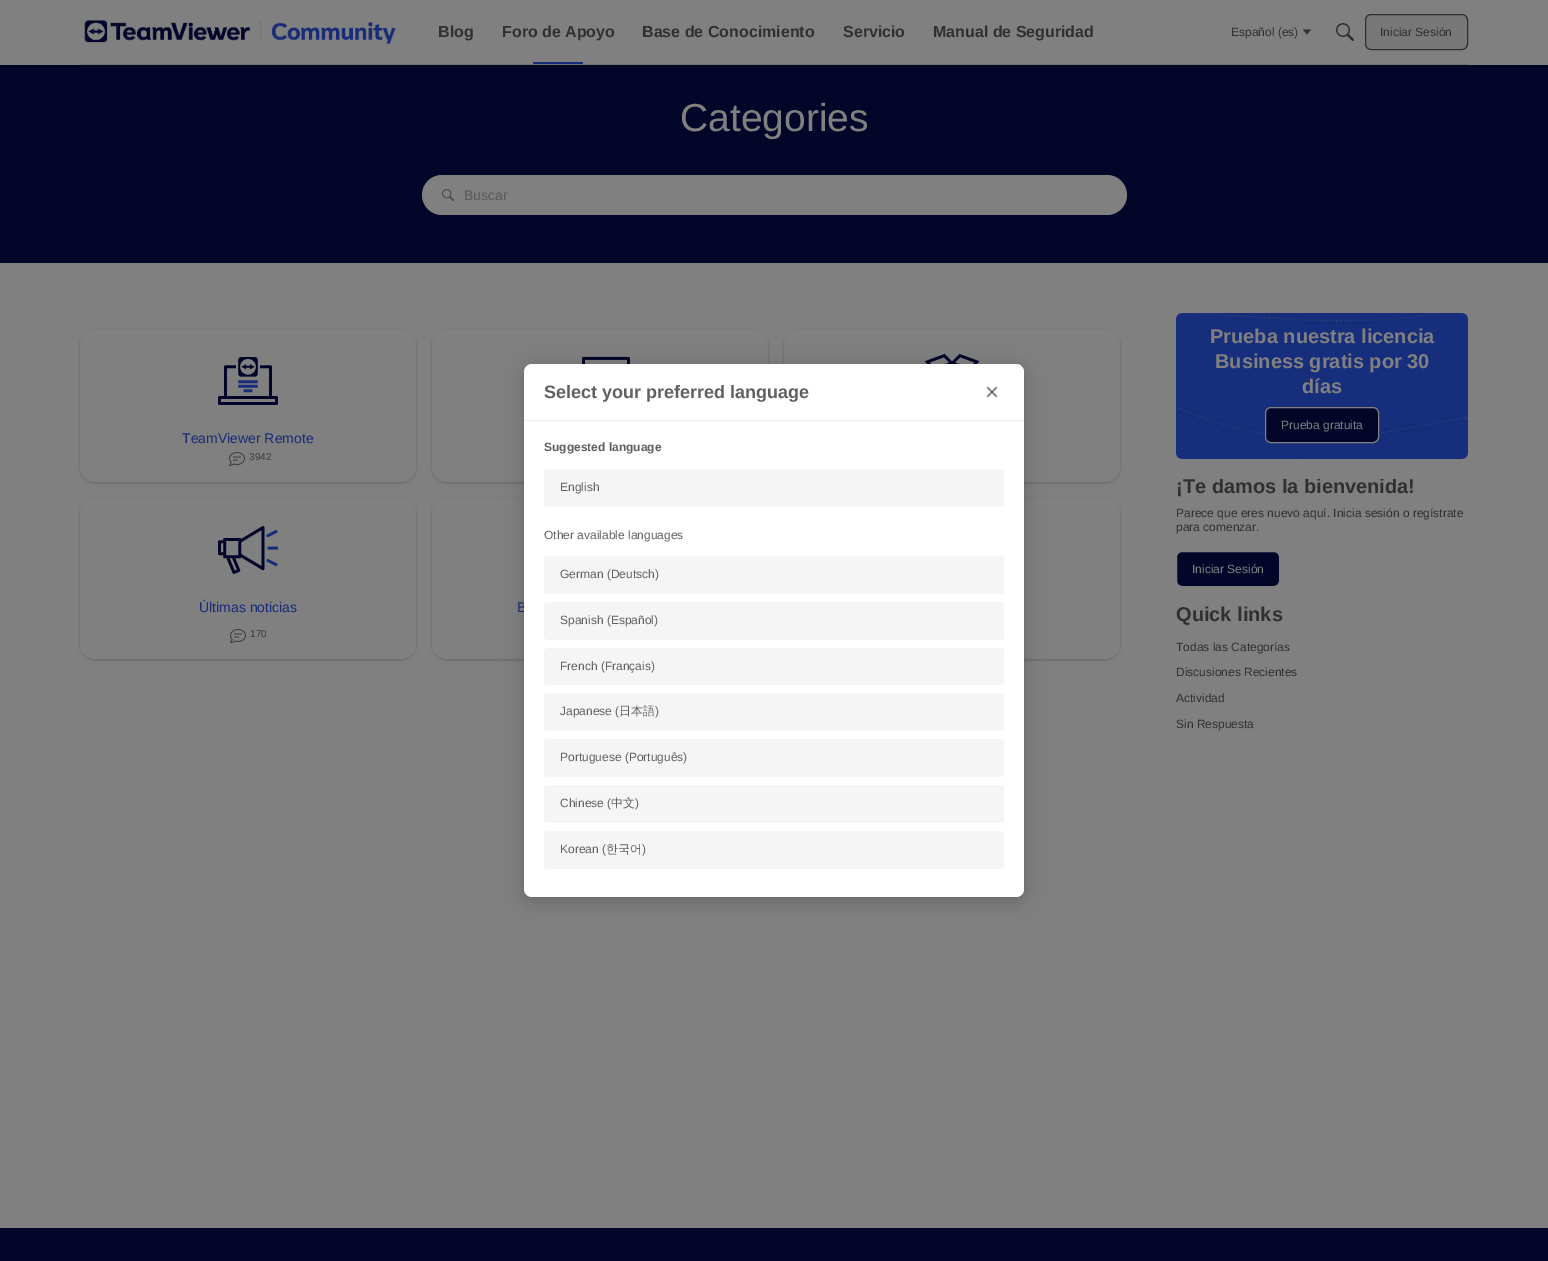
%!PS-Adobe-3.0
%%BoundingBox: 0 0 1548 1261
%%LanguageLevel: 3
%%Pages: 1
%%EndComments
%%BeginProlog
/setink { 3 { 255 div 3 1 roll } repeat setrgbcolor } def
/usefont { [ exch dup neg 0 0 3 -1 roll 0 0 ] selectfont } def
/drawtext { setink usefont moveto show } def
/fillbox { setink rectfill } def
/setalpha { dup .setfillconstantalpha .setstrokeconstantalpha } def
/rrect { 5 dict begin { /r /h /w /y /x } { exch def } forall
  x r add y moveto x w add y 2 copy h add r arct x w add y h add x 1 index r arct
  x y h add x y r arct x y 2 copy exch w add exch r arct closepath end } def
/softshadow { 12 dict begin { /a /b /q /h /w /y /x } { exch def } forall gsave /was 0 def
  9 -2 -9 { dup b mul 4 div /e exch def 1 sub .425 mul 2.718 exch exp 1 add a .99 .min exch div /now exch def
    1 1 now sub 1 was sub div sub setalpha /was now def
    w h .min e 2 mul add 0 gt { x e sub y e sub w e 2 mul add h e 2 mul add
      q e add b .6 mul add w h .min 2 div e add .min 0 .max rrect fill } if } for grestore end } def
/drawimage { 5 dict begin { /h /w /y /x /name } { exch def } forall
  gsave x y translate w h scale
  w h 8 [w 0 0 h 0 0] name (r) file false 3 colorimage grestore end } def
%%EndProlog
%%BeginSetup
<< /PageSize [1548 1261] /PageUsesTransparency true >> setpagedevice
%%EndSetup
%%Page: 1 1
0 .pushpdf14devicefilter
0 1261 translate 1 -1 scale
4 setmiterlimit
0 0 1548 1261 128 128 128 fillbox
0 65 1548 198 3 5 41 fillbox
0 0 0 setink
0 1 1548 65 0 1.5 0.22 softshadow
0 0 1548 65 128 128 128 fillbox
80 64 1388 1 109 113 118 fillbox
(assets/img1.rgb) 84 20 312 24 drawimage
(Blog) 438 37 /LiberationSans-Bold 16 48 48 48 drawtext
(Foro de Apoyo) 502 37 /LiberationSans-Bold 16 48 48 48 drawtext
533 62 50 2 24 43 120 fillbox
(Base de Conocimiento) 642 37 /LiberationSans-Bold 16 48 48 48 drawtext
(Servicio) 843 37 /LiberationSans-Bold 16 48 48 48 drawtext
(Manual de Seguridad) 933 37 /LiberationSans-Bold 16 48 48 48 drawtext
(Español \(es\)) 1231 36 /LiberationSans-Regular 12 48 48 48 drawtext
1303 29.5 moveto 1311 29.5 lineto 1307 34.5 lineto closepath fill
(assets/img2.rgb) 1336 23 18 18 drawimage
120 120 120 setink
1365.5 14.5 102 35 5.5 rrect gsave fill grestore
48 48 48 setink
stroke
(Iniciar Sesión) 1380 36 /LiberationSans-Regular 12 48 48 48 drawtext
(Categories) 680 131 /LiberationSans-Regular 39 128 128 128 drawtext
422 175 705 40 20 rrect fill
(assets/img3.rgb) 442 189 12 12 drawimage
(Buscar) 464 200 /LiberationSans-Regular 14 88 88 88 drawtext
0 0 0 setink
80 330 336 153 15 1.5 0.22 softshadow
128 128 128 setink
80 329 336 153 15 rrect fill
(assets/img4.rgb) 218 357 60 48 drawimage
(TeamViewer Remote) 182 443 /LiberationSans-Regular 14 24 43 120 drawtext
(assets/img5.rgb) 229 452 16 14 drawimage
(3942) 249 460 /LiberationSans-Regular 10 59 59 59 drawtext
0 0 0 setink
432 330 336 153 15 1.5 0.22 softshadow
128 128 128 setink
432 329 336 153 15 rrect fill
(assets/img6.rgb) 582 356 48 8 drawimage
0 0 0 setink
784 330 336 153 15 1.5 0.22 softshadow
128 128 128 setink
784 329 336 153 15 rrect fill
(assets/img7.rgb) 925 354 54 10 drawimage
0 0 0 setink
80 499 336 161 15 1.5 0.22 softshadow
128 128 128 setink
80 498 336 161 15 rrect fill
(assets/img8.rgb) 218 526 60 48 drawimage
(Últimas noticias) 199 612 /LiberationSans-Regular 14 24 43 120 drawtext
(assets/img5.rgb) 230 629 16 14 drawimage
(170) 250 637 /LiberationSans-Regular 10 59 59 59 drawtext
0 0 0 setink
432 499 336 161 15 1.5 0.22 softshadow
128 128 128 setink
432 498 336 161 15 rrect fill
(B) 517 612 /LiberationSans-Regular 14 24 43 120 drawtext
0 0 0 setink
784 499 336 161 15 1.5 0.22 softshadow
128 128 128 setink
784 498 336 161 15 rrect fill
(assets/img9.rgb) 1176 313 292 146 drawimage
(Prueba nuestra licencia) 1210 343 /LiberationSans-Bold 20 128 128 128 drawtext
(Business gratis por 30) 1215 368 /LiberationSans-Bold 20 128 128 128 drawtext
(días) 1302 393 /LiberationSans-Bold 20 128 128 128 drawtext
3 5 41 setink
1265.5 407.5 113 35 5.5 rrect gsave fill grestore
128 128 128 setink
stroke
(Prueba gratuita) 1281 429 /LiberationSans-Regular 12 128 128 128 drawtext
gsave
1176 479 292 108 rectclip
(¡Te damos la bienvenida!) 1176 493 /LiberationSans-Bold 20 48 48 48 drawtext
grestore
(Parece que eres nuevo aquí. Inicia sesión o regístrate) 1176 517 /LiberationSans-Regular 12 48 48 48 drawtext
(para comenzar.) 1176 531 /LiberationSans-Regular 12 48 48 48 drawtext
3 5 41 setink
1176.5 551.5 103 35 5.5 rrect gsave fill grestore
128 128 128 setink
stroke
(Iniciar Sesión) 1192 573 /LiberationSans-Regular 12 128 128 128 drawtext
(Quick links) 1176 621 /LiberationSans-Bold 20 48 48 48 drawtext
(Todas las Categorías) 1176 651 /LiberationSans-Regular 12 48 48 48 drawtext
(Discusiones Recientes) 1176 676 /LiberationSans-Regular 12 48 48 48 drawtext
(Actividad) 1176 702 /LiberationSans-Regular 12 48 48 48 drawtext
(Sin Respuesta) 1176 728 /LiberationSans-Regular 12 48 48 48 drawtext
0 1228 1548 33 3 5 41 fillbox
0 0 0 setink
524 368 500 533 8 10 0.2 softshadow
255 255 255 setink
524 364 500 533 8 rrect fill
524 420 500 1 238 238 238 fillbox
(Select your preferred language) 544 398 /LiberationSans-Bold 18 96 96 96 drawtext
(×) 985 400 /LiberationSans-Regular 24 102 102 102 drawtext
(Suggested language) 544 451 /LiberationSans-Bold 12 96 96 96 drawtext
245 245 245 setink
544 469 460 38 4 rrect fill
(English) 560 491 /LiberationSans-Regular 12 96 96 96 drawtext
(Other available languages) 544 539 /LiberationSans-Regular 12 96 96 96 drawtext
245 245 245 setink
544 556 460 38 4 rrect fill
(German \(Deutsch\)) 560 578 /LiberationSans-Regular 12 96 96 96 drawtext
245 245 245 setink
544 602 460 38 4 rrect fill
(Spanish \(Español\)) 560 624 /LiberationSans-Regular 12 96 96 96 drawtext
245 245 245 setink
544 648 460 37 4 rrect fill
(French \(Français\)) 560 670 /LiberationSans-Regular 12 96 96 96 drawtext
245 245 245 setink
544 693 460 38 4 rrect fill
(Japanese \() 560 715 /LiberationSans-Regular 12 96 96 96 drawtext
(日本語) 619 715 /WenQuanYiZenHei-Medium 12 96 96 96 drawtext
(\)) 655 715 /LiberationSans-Regular 12 96 96 96 drawtext
245 245 245 setink
544 739 460 38 4 rrect fill
(Portuguese \(Português\)) 560 761 /LiberationSans-Regular 12 96 96 96 drawtext
245 245 245 setink
544 785 460 38 4 rrect fill
(Chinese \() 560 807 /LiberationSans-Regular 12 96 96 96 drawtext
(中文) 611 807 /WenQuanYiZenHei-Medium 12 96 96 96 drawtext
(\)) 635 807 /LiberationSans-Regular 12 96 96 96 drawtext
245 245 245 setink
544 831 460 38 4 rrect fill
(Korean \() 560 853 /LiberationSans-Regular 12 96 96 96 drawtext
(한국어) 606 853 /WenQuanYiZenHei-Medium 12 96 96 96 drawtext
(\)) 642 853 /LiberationSans-Regular 12 96 96 96 drawtext
.poppdf14devicefilter showpage
%%EOF
